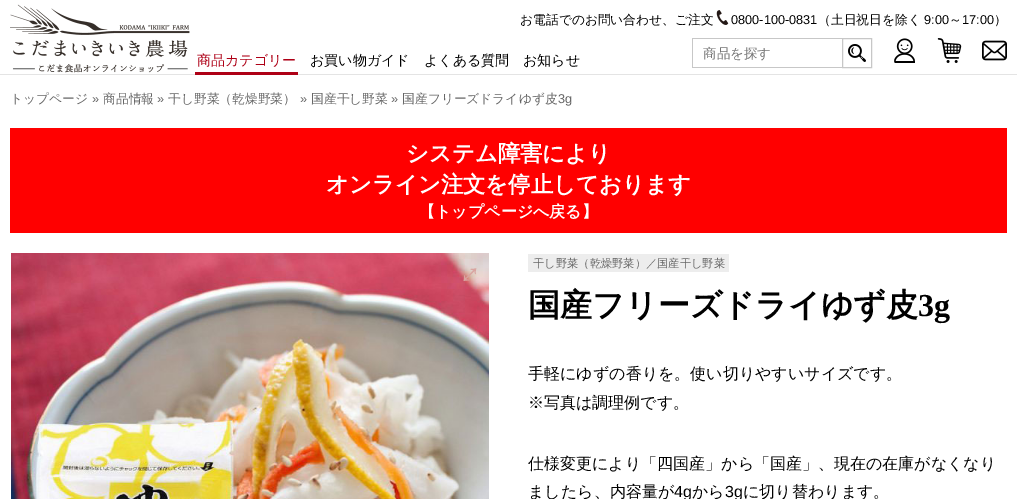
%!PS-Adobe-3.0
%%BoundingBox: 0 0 1017 499
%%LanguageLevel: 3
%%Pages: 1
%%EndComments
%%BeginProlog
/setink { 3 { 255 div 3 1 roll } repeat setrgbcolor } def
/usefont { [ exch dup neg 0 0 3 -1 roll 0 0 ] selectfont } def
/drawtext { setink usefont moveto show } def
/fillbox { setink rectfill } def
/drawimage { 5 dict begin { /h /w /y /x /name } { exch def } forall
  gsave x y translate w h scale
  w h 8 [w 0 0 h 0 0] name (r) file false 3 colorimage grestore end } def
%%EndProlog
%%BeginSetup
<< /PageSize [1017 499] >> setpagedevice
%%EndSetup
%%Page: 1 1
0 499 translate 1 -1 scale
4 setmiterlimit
0 0 1017 499 255 255 255 fillbox
0 74 1017 1 228 228 228 fillbox
(assets/img1.rgb) 10 4 180 69 drawimage
(お電話でのお問い合わせ、ご注文) 520 24 /WenQuanYiZenHei-Medium 12.75 0 0 0 drawtext
(assets/img2.rgb) 716 10 13 15 drawimage
(0800-100-0831) 731 24 /LiberationSans-Regular 12.75 0 0 0 drawtext
(（土日祝日を除く) 818 24 /WenQuanYiZenHei-Medium 12.75 0 0 0 drawtext
(9:00) 924 24 /LiberationSans-Regular 12.75 0 0 0 drawtext
(～) 949 24 /WenQuanYiZenHei-Medium 12.75 0 0 0 drawtext
(17:00) 962 24 /LiberationSans-Regular 12.75 0 0 0 drawtext
(）) 994 24 /WenQuanYiZenHei-Medium 12.75 0 0 0 drawtext
195 72 103 3 174 0 22 fillbox
(商品カテゴリー) 197 65 /WenQuanYiZenHei-Medium 14 174 0 22 drawtext
(お買い物ガイド) 310 65 /WenQuanYiZenHei-Medium 14 0 0 0 drawtext
(よくある質問) 424 65 /WenQuanYiZenHei-Medium 14 0 0 0 drawtext
(お知らせ) 523 65 /WenQuanYiZenHei-Medium 14 0 0 0 drawtext
692 38 150 1 199 199 199 fillbox
692 67 150 1 199 199 199 fillbox
692 38 1 30 199 199 199 fillbox
(商品を探す) 703 58 /WenQuanYiZenHei-Medium 13.5 117 117 117 drawtext
199 199 199 setink
842.5 38.5 29 29 rectstroke
(assets/img3.rgb) 848 44 18 18 drawimage
(assets/img4.rgb) 894 38 21 25 drawimage
(assets/img5.rgb) 937 38 25 25 drawimage
(assets/img6.rgb) 982 40 25 21 drawimage
(トップページ) 10 103 /WenQuanYiZenHei-Medium 12.75 102 102 102 drawtext
(») 92 103 /LiberationSans-Regular 12.75 102 102 102 drawtext
(商品情報) 103 103 /WenQuanYiZenHei-Medium 12.75 102 102 102 drawtext
(») 157 103 /LiberationSans-Regular 12.75 102 102 102 drawtext
(干し野菜（乾燥野菜）) 168 103 /WenQuanYiZenHei-Medium 12.75 102 102 102 drawtext
(») 300 103 /LiberationSans-Regular 12.75 102 102 102 drawtext
(国産干し野菜) 311 103 /WenQuanYiZenHei-Medium 12.75 102 102 102 drawtext
(») 391 103 /LiberationSans-Regular 12.75 102 102 102 drawtext
(国産フリーズドライゆず皮) 402 103 /WenQuanYiZenHei-Medium 12.75 102 102 102 drawtext
(3g) 558 103 /LiberationSans-Regular 12.75 102 102 102 drawtext
10 128 997 105 255 0 0 fillbox
(システム障害により) 406 161 /WenQuanYiZenHei-Bold 22.4 255 255 255 drawtext
(オンライン注文を停止しております) 326 192 /WenQuanYiZenHei-Bold 22.4 255 255 255 drawtext
(【トップページへ戻る】) 419 217 /WenQuanYiZenHei-Bold 16 255 255 255 drawtext
(assets/img7.rgb) 11 253 478 246 drawimage
/LiberationSans-Regular 30 usefont
217 164 160 setink
gsave 459 275 translate 45 rotate 0 0 moveto (↕) show grestore
528 254 201 18 237 237 237 fillbox
(干し野菜（乾燥野菜）／国産干し野菜) 533 267 /WenQuanYiZenHei-Medium 11.25 102 102 102 drawtext
(国産フリーズドライゆず皮) 528 316 /WenQuanYiZenHei-Bold 32 0 0 0 drawtext
(3g) 918 316 /LiberationSerif-Bold 32 0 0 0 drawtext
(手軽にゆずの香りを。使い切りやすいサイズです。) 528 379 /WenQuanYiZenHei-Medium 16 0 0 0 drawtext
(※写真は調理例です。) 528 408 /WenQuanYiZenHei-Medium 16 0 0 0 drawtext
(仕様変更により「四国産」から「国産」、現在の在庫がなくなり) 528 469 /WenQuanYiZenHei-Medium 16 0 0 0 drawtext
(ましたら、内容量が) 528 497 /WenQuanYiZenHei-Medium 16 0 0 0 drawtext
(4g) 674 497 /LiberationSans-Regular 16 0 0 0 drawtext
(から) 692 497 /WenQuanYiZenHei-Medium 16 0 0 0 drawtext
(3g) 725 497 /LiberationSans-Regular 16 0 0 0 drawtext
(に切り替わります。) 743 497 /WenQuanYiZenHei-Medium 16 0 0 0 drawtext
showpage
%%EOF
